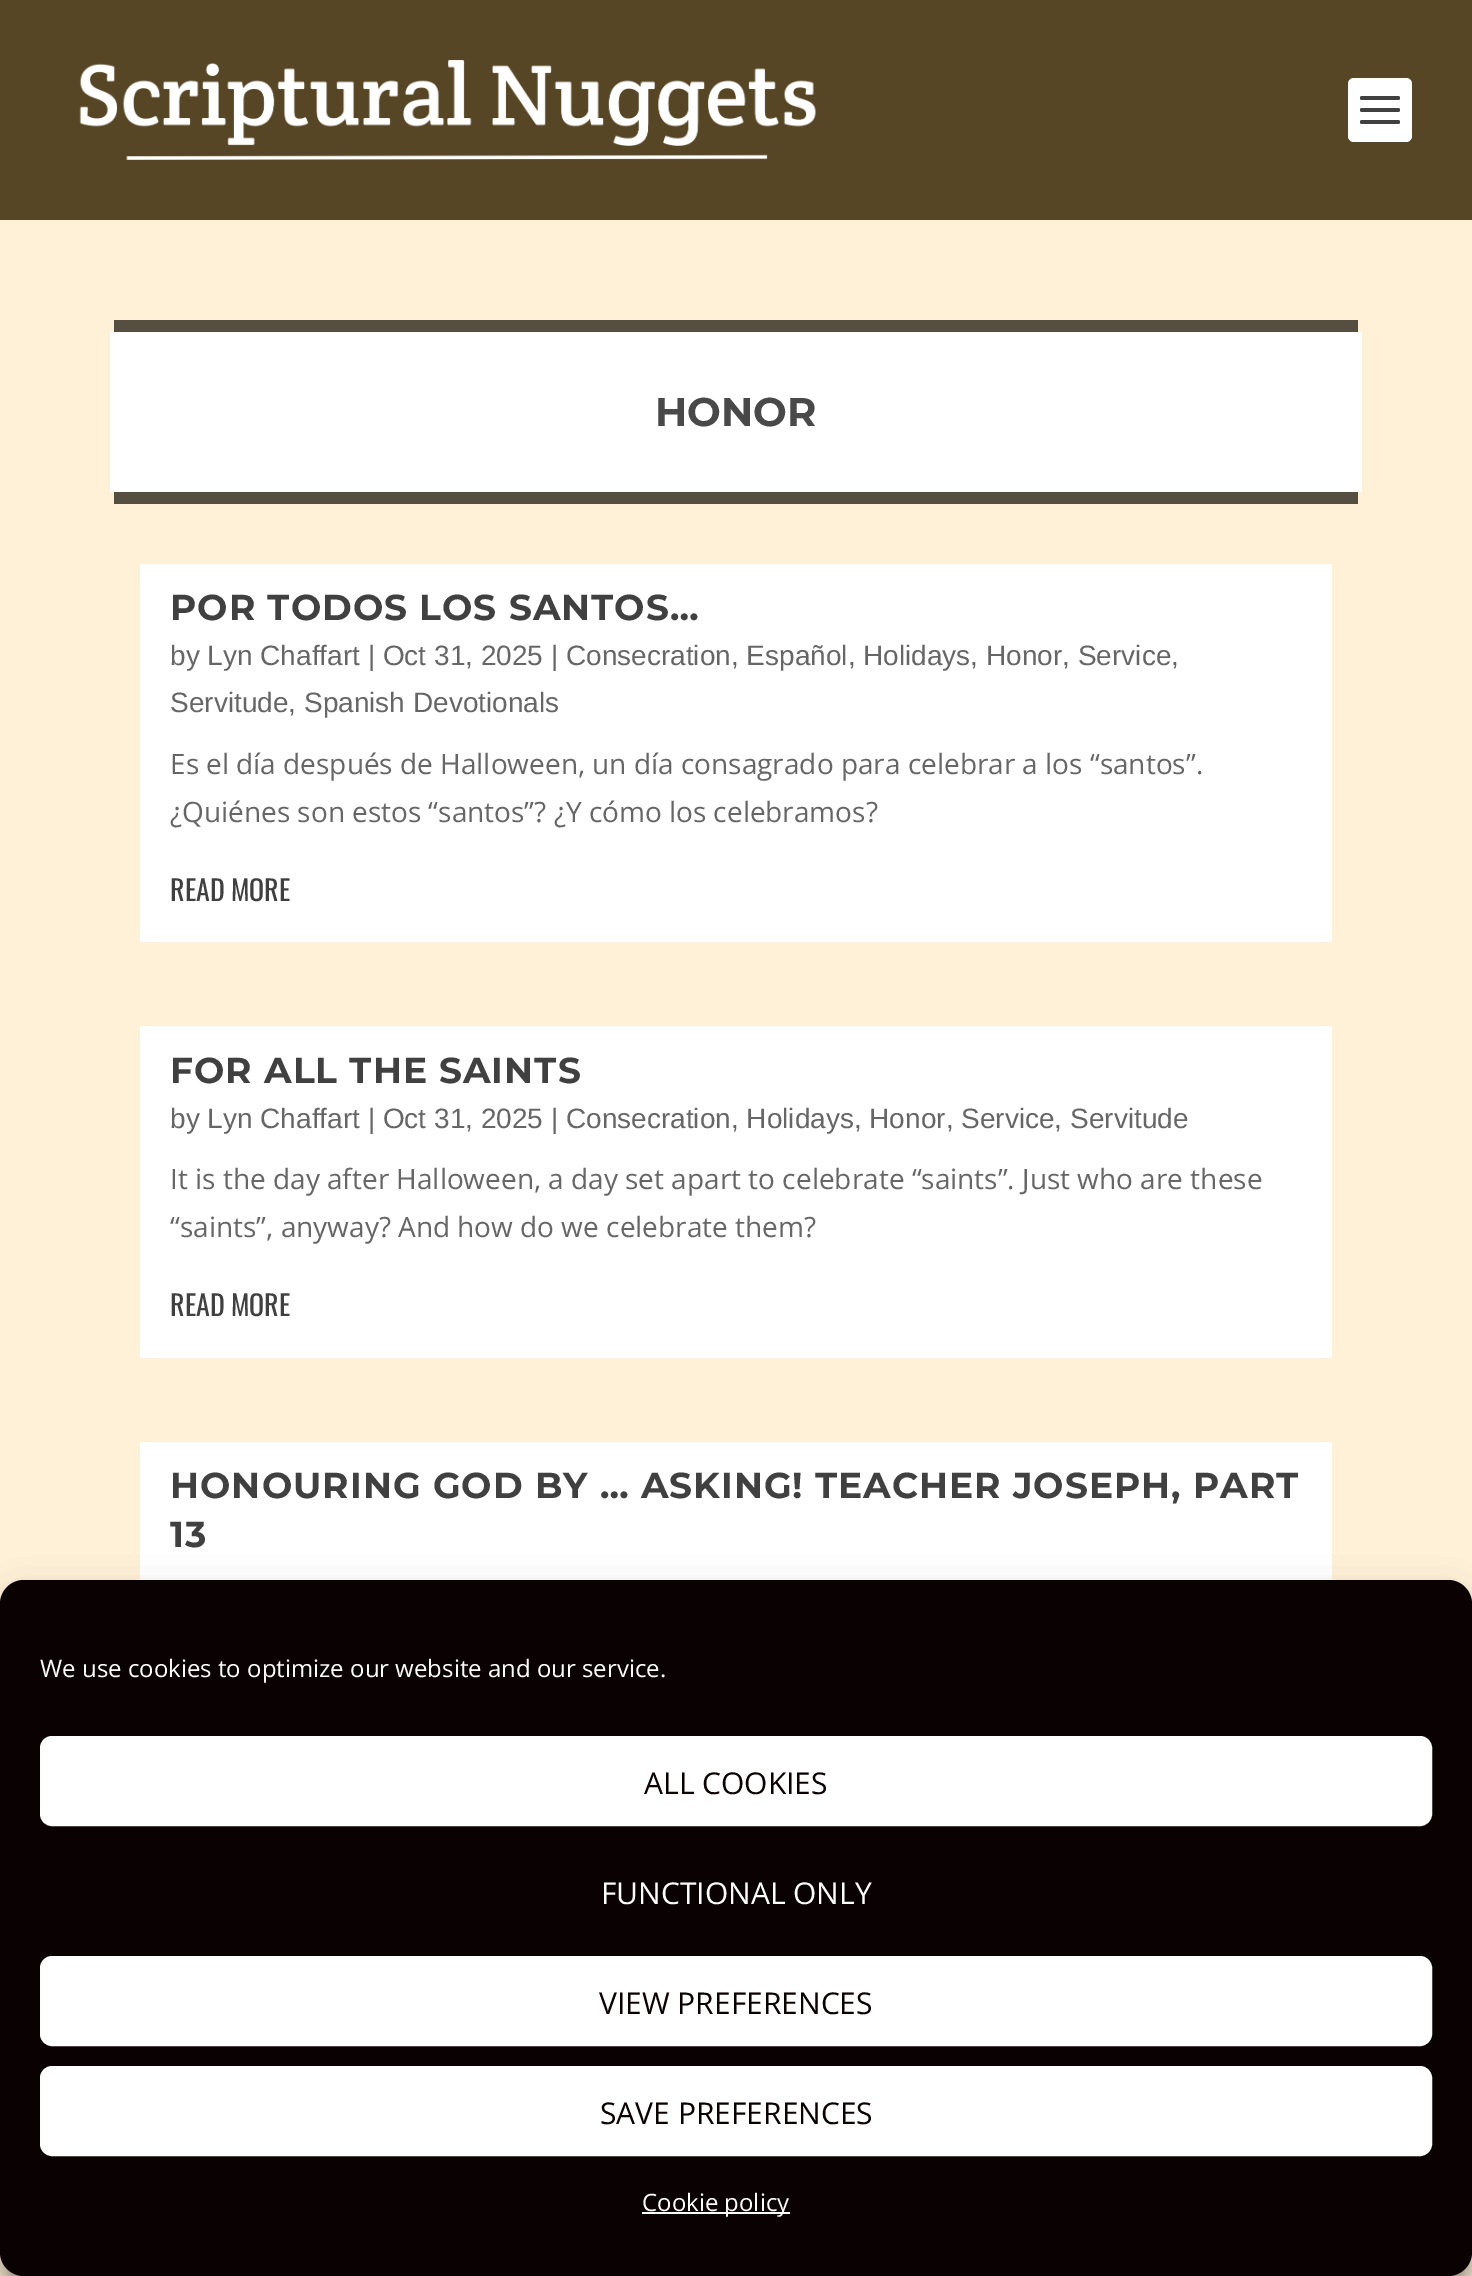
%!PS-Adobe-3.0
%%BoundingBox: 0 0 1472 2276
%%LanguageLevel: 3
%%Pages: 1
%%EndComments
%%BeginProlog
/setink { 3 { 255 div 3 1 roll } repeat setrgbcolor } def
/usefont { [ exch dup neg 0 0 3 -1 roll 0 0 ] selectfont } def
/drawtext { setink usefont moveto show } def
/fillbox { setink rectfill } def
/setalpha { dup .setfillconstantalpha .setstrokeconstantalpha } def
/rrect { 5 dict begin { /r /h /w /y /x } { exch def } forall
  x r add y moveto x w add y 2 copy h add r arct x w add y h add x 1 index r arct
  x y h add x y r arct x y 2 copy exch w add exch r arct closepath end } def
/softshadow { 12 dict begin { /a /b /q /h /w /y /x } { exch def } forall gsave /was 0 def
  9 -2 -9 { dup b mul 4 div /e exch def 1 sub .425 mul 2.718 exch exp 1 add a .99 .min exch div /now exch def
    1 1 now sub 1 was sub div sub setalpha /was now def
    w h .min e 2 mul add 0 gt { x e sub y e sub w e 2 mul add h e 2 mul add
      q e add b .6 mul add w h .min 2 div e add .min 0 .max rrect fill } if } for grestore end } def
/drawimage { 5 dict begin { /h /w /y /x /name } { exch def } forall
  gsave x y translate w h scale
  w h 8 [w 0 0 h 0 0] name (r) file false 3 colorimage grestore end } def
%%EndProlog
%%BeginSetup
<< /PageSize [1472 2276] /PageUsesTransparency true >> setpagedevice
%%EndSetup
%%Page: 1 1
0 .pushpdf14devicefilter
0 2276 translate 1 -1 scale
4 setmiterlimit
0 0 1472 2276 255 240 216 fillbox
0 0 1472 220 87 70 37 fillbox
(assets/img1.rgb) 79 60 737 100 drawimage
255 255 255 setink
1348 78 64 64 6 rrect fill
64 64 64 setink
1360 96 40 4 2 rrect fill
1360 108 40 4 2 rrect fill
1360 120 40 4 2 rrect fill
255 255 255 setink
118 332 moveto 1362 332 lineto 1362 492 lineto 110 492 lineto 110 332 lineto closepath fill
114 320 1244 12 86 78 64 fillbox
114 492 1244 12 86 78 64 fillbox
(HONOR) 655 426 /Montserrat-Bold 40 73 73 73 drawtext
140 564 1192 378 255 255 255 fillbox
/Montserrat-Bold 36 usefont
64 64 64 setink
170 620 moveto 1 0 (POR TODOS LOS SANTOS…) ashow
(by Lyn Chaffart | Oct 31, 2025 | Consecration, Español, Holidays, Honor, Service,) 170 665 /LiberationSans-Regular 28 102 102 102 drawtext
(Servitude, Spanish Devotionals) 170 712 /LiberationSans-Regular 28 102 102 102 drawtext
(Es el día después de Halloween, un día consagrado para celebrar a los “santos”.) 170 774 /OpenSans-Regular 28 102 102 102 drawtext
(¿Quiénes son estos “santos”? ¿Y cómo los celebramos?) 170 822 /OpenSans-Regular 28 102 102 102 drawtext
(READ MORE) 170 901 /Oswald-Regular 28 64 64 64 drawtext
140 1026 1192 332 255 255 255 fillbox
/Montserrat-Bold 36 usefont
64 64 64 setink
170 1083 moveto 1 0 (FOR ALL THE SAINTS) ashow
(by Lyn Chaffart | Oct 31, 2025 | Consecration, Holidays, Honor, Service, Servitude) 170 1128 /LiberationSans-Regular 28 102 102 102 drawtext
(It is the day after Halloween, a day set apart to celebrate “saints”. Just who are these) 170 1189 /OpenSans-Regular 28 102 102 102 drawtext
(“saints”, anyway? And how do we celebrate them?) 170 1237 /OpenSans-Regular 28 102 102 102 drawtext
(READ MORE) 170 1316 /Oswald-Regular 28 64 64 64 drawtext
140 1442 1192 138 255 255 255 fillbox
/Montserrat-Bold 36 usefont
64 64 64 setink
170 1498 moveto 1 0 (HONOURING GOD BY … ASKING! TEACHER JOSEPH, PART) ashow
170 1547 moveto 1 0 (13) ashow
0 0 0 setink
0 1592 1472 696 24 6 0.23 softshadow
0 1600 1472 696 24 20 0.19 softshadow
10 2 2 setink
0 1580 1472 696 24 rrect fill
(We use cookies to optimize our website and our service.) 40 1677 /OpenSans-Regular 24 255 255 255 drawtext
41 1737 1390 88 11 rrect gsave fill grestore
2 setlinewidth
stroke
(ALL COOKIES) 644 1794 /OpenSans-Regular 30 10 0 0 drawtext
(FUNCTIONAL ONLY) 601 1904 /OpenSans-Regular 30 255 255 255 drawtext
41 1957 1390 88 11 rrect gsave fill grestore
stroke
(VIEW PREFERENCES) 599 2014 /OpenSans-Regular 30 10 0 0 drawtext
255 255 255 setink
41 2067 1390 88 11 rrect gsave fill grestore
stroke
(SAVE PREFERENCES) 600 2124 /OpenSans-Regular 30 10 0 0 drawtext
642 2212 148 2 255 255 255 fillbox
(Cookie policy) 642 2211 /OpenSans-Regular 24 255 255 255 drawtext
.poppdf14devicefilter showpage
%%EOF
